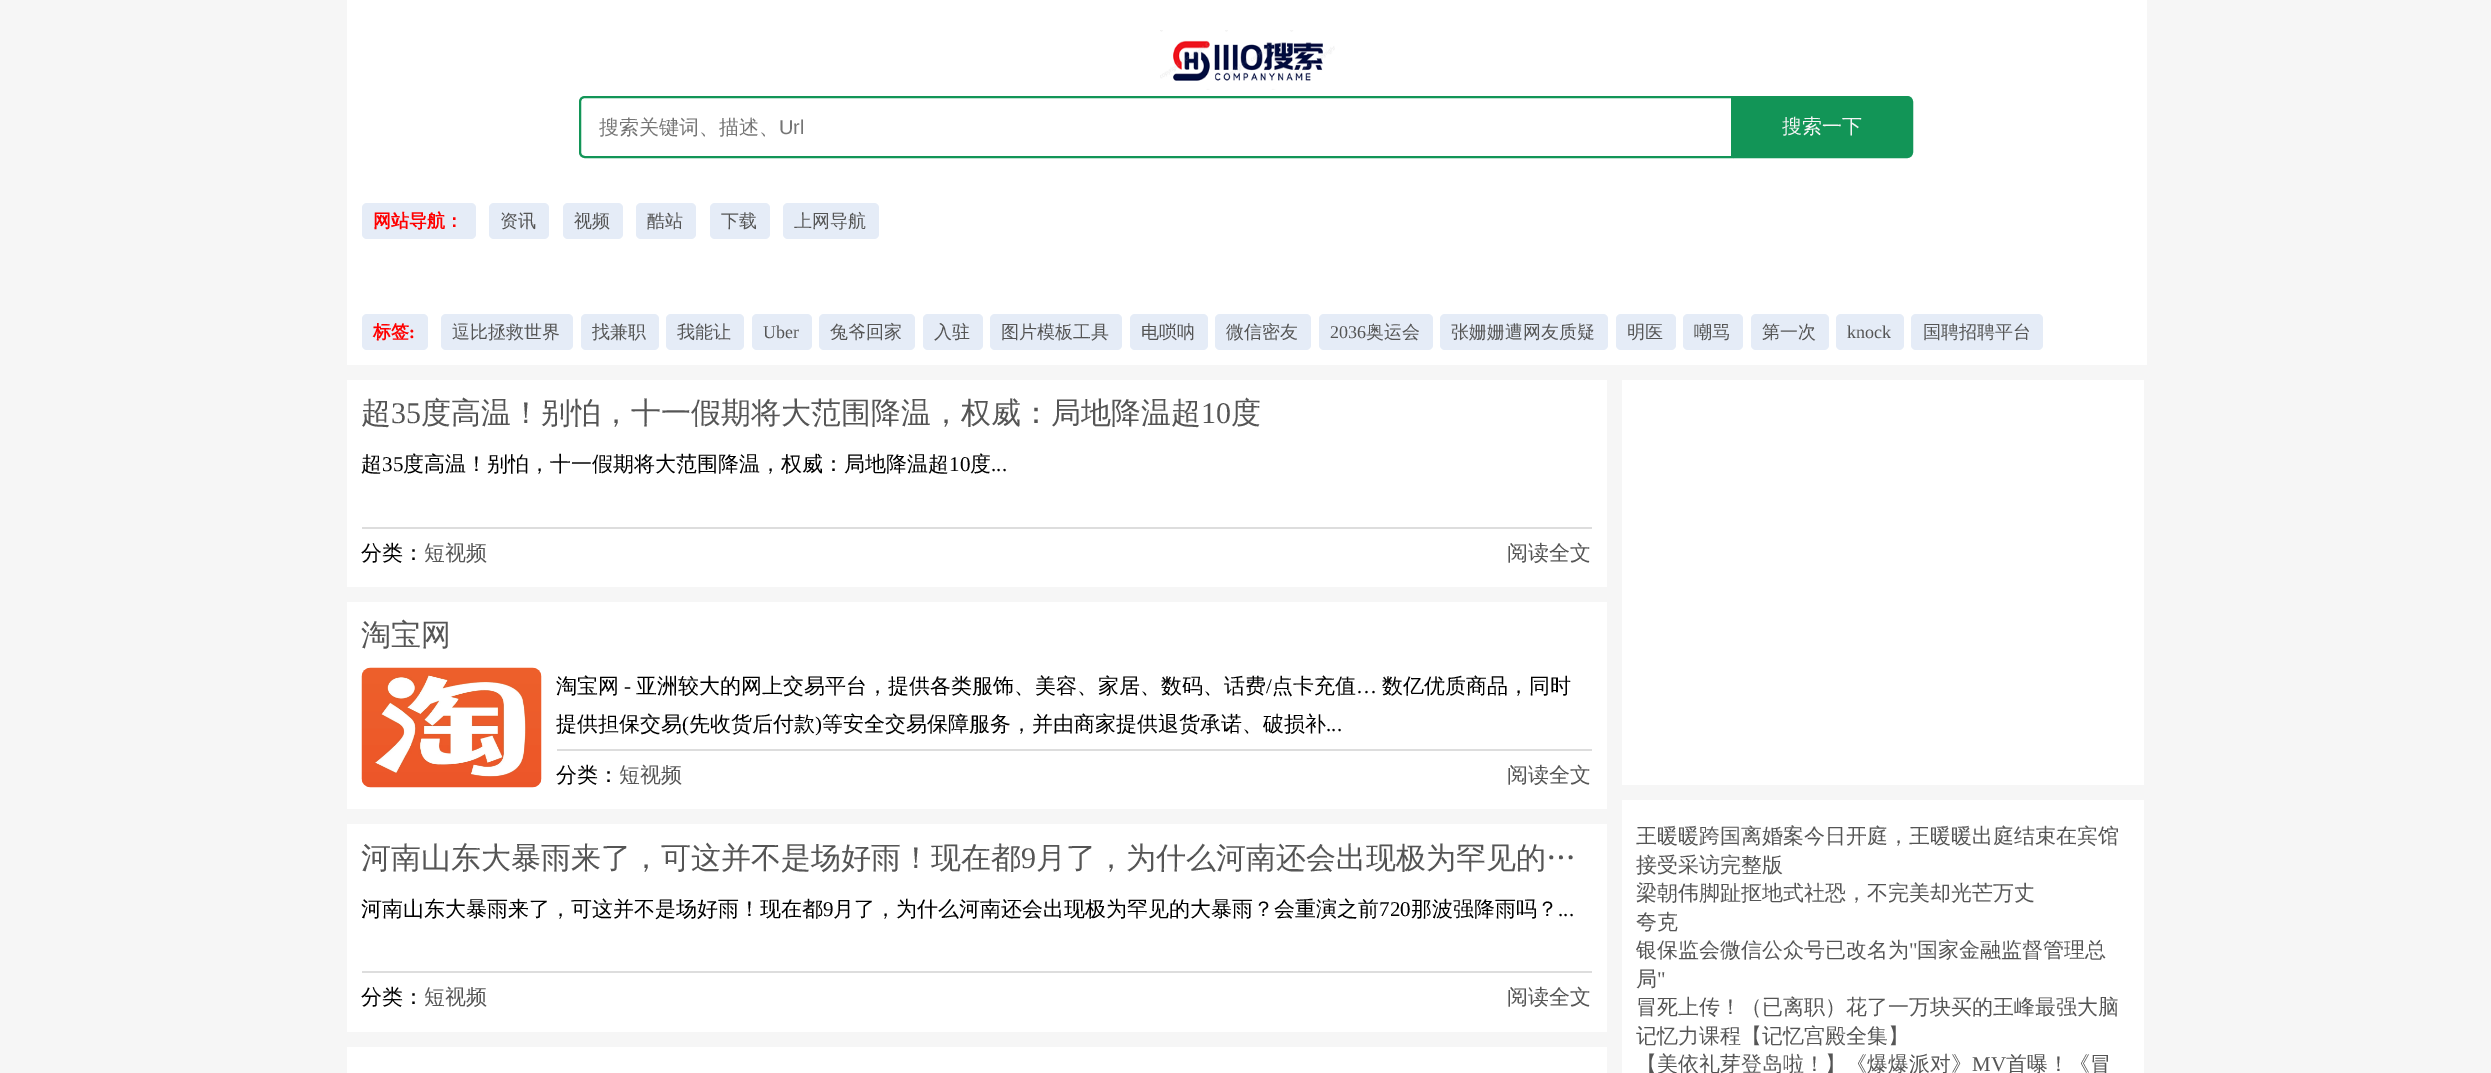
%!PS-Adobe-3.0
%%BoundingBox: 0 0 2491 1073
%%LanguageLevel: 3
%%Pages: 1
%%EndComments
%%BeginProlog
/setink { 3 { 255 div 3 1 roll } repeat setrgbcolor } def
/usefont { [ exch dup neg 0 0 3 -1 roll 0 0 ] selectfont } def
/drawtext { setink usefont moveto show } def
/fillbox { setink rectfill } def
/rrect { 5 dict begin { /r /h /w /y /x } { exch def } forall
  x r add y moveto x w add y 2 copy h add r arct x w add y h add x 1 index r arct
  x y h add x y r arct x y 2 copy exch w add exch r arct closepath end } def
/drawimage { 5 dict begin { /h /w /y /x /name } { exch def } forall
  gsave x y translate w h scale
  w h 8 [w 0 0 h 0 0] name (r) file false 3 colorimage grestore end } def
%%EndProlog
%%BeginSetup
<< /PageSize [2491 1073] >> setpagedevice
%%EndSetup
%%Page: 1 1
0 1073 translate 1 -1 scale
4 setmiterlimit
0 0 2491 1073 246 246 246 fillbox
347 0 1800 365 255 255 255 fillbox
(assets/img1.rgb) 1160 30 175 60 drawimage
18 149 87 setink
2 setlinewidth
585 97 moveto 1732 97 lineto 1732 157 lineto 585 157 lineto 582 157 580 155 580 152 curveto 580 102 lineto 580 99 582 97 585 97 curveto closepath stroke
(搜索关键词、描述、) 599 134 /WenQuanYiZenHei-Medium 20 117 117 117 drawtext
(Url) 779 134 /LiberationSans-Regular 20 117 117 117 drawtext
18 149 87 setink
1734 97 moveto 1907 97 lineto 1910 97 1912 99 1912 102 curveto 1912 152 lineto 1912 155 1910 157 1907 157 curveto 1734 157 lineto closepath gsave fill grestore
stroke
(搜索一下) 1782 133 /WenQuanYiZenHei-Medium 20 244 244 244 drawtext
229 236 247 setink
362 203 114 36 5 rrect fill
(网站导航：) 373 227 /WenQuanYiZenHei-Bold 18 255 0 0 drawtext
229 236 247 setink
489 203 60 36 5 rrect fill
(资讯) 500 227 /WenQuanYiZenHei-Medium 18 85 85 85 drawtext
229 236 247 setink
563 203 60 36 5 rrect fill
(视频) 574 227 /WenQuanYiZenHei-Medium 18 85 85 85 drawtext
229 236 247 setink
636 203 60 36 5 rrect fill
(酷站) 647 227 /WenQuanYiZenHei-Medium 18 85 85 85 drawtext
229 236 247 setink
710 203 60 36 5 rrect fill
(下载) 721 227 /WenQuanYiZenHei-Medium 18 85 85 85 drawtext
229 236 247 setink
783 203 96 36 5 rrect fill
(上网导航) 794 227 /WenQuanYiZenHei-Medium 18 85 85 85 drawtext
229 236 247 setink
362 314 66 36 5 rrect fill
(标签) 373 338 /WenQuanYiZenHei-Bold 18 255 0 0 drawtext
(:) 409 338 /LiberationSerif-Bold 18 255 0 0 drawtext
229 236 247 setink
441 314 132 36 5 rrect fill
(逗比拯救世界) 452 338 /WenQuanYiZenHei-Medium 18 85 85 85 drawtext
229 236 247 setink
581 314 78 36 5 rrect fill
(找兼职) 592 338 /WenQuanYiZenHei-Medium 18 85 85 85 drawtext
229 236 247 setink
666 314 78 36 5 rrect fill
(我能让) 677 338 /WenQuanYiZenHei-Medium 18 85 85 85 drawtext
229 236 247 setink
752 314 60 36 5 rrect fill
(Uber) 763 338 /LiberationSerif-Regular 18 85 85 85 drawtext
229 236 247 setink
819 314 96 36 5 rrect fill
(兔爷回家) 830 338 /WenQuanYiZenHei-Medium 18 85 85 85 drawtext
229 236 247 setink
923 314 60 36 5 rrect fill
(入驻) 934 338 /WenQuanYiZenHei-Medium 18 85 85 85 drawtext
229 236 247 setink
990 314 132 36 5 rrect fill
(图片模板工具) 1001 338 /WenQuanYiZenHei-Medium 18 85 85 85 drawtext
229 236 247 setink
1130 314 78 36 5 rrect fill
(电唢呐) 1141 338 /WenQuanYiZenHei-Medium 18 85 85 85 drawtext
229 236 247 setink
1215 314 96 36 5 rrect fill
(微信密友) 1226 338 /WenQuanYiZenHei-Medium 18 85 85 85 drawtext
229 236 247 setink
1319 314 114 36 5 rrect fill
(2036) 1330 338 /LiberationSerif-Regular 18 85 85 85 drawtext
(奥运会) 1366 338 /WenQuanYiZenHei-Medium 18 85 85 85 drawtext
229 236 247 setink
1440 314 168 36 5 rrect fill
(张姗姗遭网友质疑) 1451 338 /WenQuanYiZenHei-Medium 18 85 85 85 drawtext
229 236 247 setink
1616 314 60 36 5 rrect fill
(明医) 1627 338 /WenQuanYiZenHei-Medium 18 85 85 85 drawtext
229 236 247 setink
1683 314 60 36 5 rrect fill
(嘲骂) 1694 338 /WenQuanYiZenHei-Medium 18 85 85 85 drawtext
229 236 247 setink
1751 314 78 36 5 rrect fill
(第一次) 1762 338 /WenQuanYiZenHei-Medium 18 85 85 85 drawtext
229 236 247 setink
1836 314 68 36 5 rrect fill
(knock) 1847 338 /LiberationSerif-Regular 18 85 85 85 drawtext
229 236 247 setink
1911 314 132 36 5 rrect fill
(国聘招聘平台) 1923 338 /WenQuanYiZenHei-Medium 18 85 85 85 drawtext
347 380 1260 207 255 255 255 fillbox
(超) 361 423 /WenQuanYiZenHei-Medium 30 85 85 85 drawtext
(35) 391 423 /LiberationSerif-Regular 30 85 85 85 drawtext
(度高温！别怕，十一假期将大范围降温，权威：局地降温超) 421 423 /WenQuanYiZenHei-Medium 30 85 85 85 drawtext
(10) 1201 423 /LiberationSerif-Regular 30 85 85 85 drawtext
(度) 1231 423 /WenQuanYiZenHei-Medium 30 85 85 85 drawtext
(超) 361 471 /WenQuanYiZenHei-Medium 21 0 0 0 drawtext
(35) 382 471 /LiberationSerif-Regular 21 0 0 0 drawtext
(度高温！别怕，十一假期将大范围降温，权威：局地降温超) 403 471 /WenQuanYiZenHei-Medium 21 0 0 0 drawtext
(10) 949 471 /LiberationSerif-Regular 21 0 0 0 drawtext
(度) 970 471 /WenQuanYiZenHei-Medium 21 0 0 0 drawtext
(...) 991 471 /LiberationSerif-Regular 21 0 0 0 drawtext
362 527 1230 2 221 221 221 fillbox
(分类：) 361 560 /WenQuanYiZenHei-Medium 21 0 0 0 drawtext
(短视频) 424 560 /WenQuanYiZenHei-Medium 21 85 85 85 drawtext
(阅读全文) 1507 560 /WenQuanYiZenHei-Medium 21 85 85 85 drawtext
347 602 1260 207 255 255 255 fillbox
(淘宝网) 361 645 /WenQuanYiZenHei-Medium 30 85 85 85 drawtext
(assets/img2.rgb) 361 667 181 121 drawimage
(淘宝网) 556 693 /WenQuanYiZenHei-Medium 21 0 0 0 drawtext
(-) 624 693 /LiberationSerif-Regular 21 0 0 0 drawtext
(亚洲较大的网上交易平台，提供各类服饰、美容、家居、数码、话费) 636 693 /WenQuanYiZenHei-Medium 21 0 0 0 drawtext
(/) 1266 693 /LiberationSerif-Regular 21 0 0 0 drawtext
(点卡充值) 1272 693 /WenQuanYiZenHei-Medium 21 0 0 0 drawtext
(数亿优质商品，同时) 1382 693 /WenQuanYiZenHei-Medium 21 0 0 0 drawtext
(…) 1356 693 /LiberationSerif-Regular 21 0 0 0 drawtext
(提供担保交易) 556 731 /WenQuanYiZenHei-Medium 21 0 0 0 drawtext
(\() 682 731 /LiberationSerif-Regular 21 0 0 0 drawtext
(先收货后付款) 689 731 /WenQuanYiZenHei-Medium 21 0 0 0 drawtext
(\)) 815 731 /LiberationSerif-Regular 21 0 0 0 drawtext
(等安全交易保障服务，并由商家提供退货承诺、破损补) 822 731 /WenQuanYiZenHei-Medium 21 0 0 0 drawtext
(...) 1326 731 /LiberationSerif-Regular 21 0 0 0 drawtext
557 749 1035 2 221 221 221 fillbox
(分类：) 556 782 /WenQuanYiZenHei-Medium 21 0 0 0 drawtext
(短视频) 619 782 /WenQuanYiZenHei-Medium 21 85 85 85 drawtext
(阅读全文) 1507 782 /WenQuanYiZenHei-Medium 21 85 85 85 drawtext
347 824 1260 208 255 255 255 fillbox
(河南山东大暴雨来了，可这并不是场好雨！现在都) 361 868 /WenQuanYiZenHei-Medium 30 85 85 85 drawtext
(9) 1021 868 /LiberationSerif-Regular 30 85 85 85 drawtext
(月了，为什么河南还会出现极为罕见的…) 1036 868 /WenQuanYiZenHei-Medium 30 85 85 85 drawtext
(河南山东大暴雨来了，可这并不是场好雨！现在都) 361 916 /WenQuanYiZenHei-Medium 21 0 0 0 drawtext
(9) 823 916 /LiberationSerif-Regular 21 0 0 0 drawtext
(月了，为什么河南还会出现极为罕见的大暴雨？会重演之前) 833 916 /WenQuanYiZenHei-Medium 21 0 0 0 drawtext
(720) 1379 916 /LiberationSerif-Regular 21 0 0 0 drawtext
(那波强降雨吗？) 1411 916 /WenQuanYiZenHei-Medium 21 0 0 0 drawtext
(...) 1558 916 /LiberationSerif-Regular 21 0 0 0 drawtext
362 971 1230 2 221 221 221 fillbox
(分类：) 361 1004 /WenQuanYiZenHei-Medium 21 0 0 0 drawtext
(短视频) 424 1004 /WenQuanYiZenHei-Medium 21 85 85 85 drawtext
(阅读全文) 1507 1004 /WenQuanYiZenHei-Medium 21 85 85 85 drawtext
347 1047 1260 26 255 255 255 fillbox
1622 380 522 405 255 255 255 fillbox
1622 800 522 273 255 255 255 fillbox
(王暖暖跨国离婚案今日开庭，王暖暖出庭结束在宾馆) 1636 843 /WenQuanYiZenHei-Medium 21 85 85 85 drawtext
(接受采访完整版) 1636 872 /WenQuanYiZenHei-Medium 21 85 85 85 drawtext
(梁朝伟脚趾抠地式社恐，不完美却光芒万丈) 1636 900 /WenQuanYiZenHei-Medium 21 85 85 85 drawtext
(夸克) 1636 929 /WenQuanYiZenHei-Medium 21 85 85 85 drawtext
(银保监会微信公众号已改名为) 1636 957 /WenQuanYiZenHei-Medium 21 85 85 85 drawtext
(") 1909 957 /LiberationSerif-Regular 21 85 85 85 drawtext
(国家金融监督管理总) 1917 957 /WenQuanYiZenHei-Medium 21 85 85 85 drawtext
(局) 1636 986 /WenQuanYiZenHei-Medium 21 85 85 85 drawtext
(") 1657 986 /LiberationSerif-Regular 21 85 85 85 drawtext
(冒死上传！（已离职）花了一万块买的王峰最强大脑) 1636 1014 /WenQuanYiZenHei-Medium 21 85 85 85 drawtext
(记忆力课程【记忆宫殿全集】) 1636 1043 /WenQuanYiZenHei-Medium 21 85 85 85 drawtext
(【美依礼芽登岛啦！】《爆爆派对》) 1636 1071 /WenQuanYiZenHei-Medium 21 85 85 85 drawtext
(MV) 1972 1071 /LiberationSerif-Regular 21 85 85 85 drawtext
(首曝！《冒) 2006 1071 /WenQuanYiZenHei-Medium 21 85 85 85 drawtext
showpage
%%EOF
